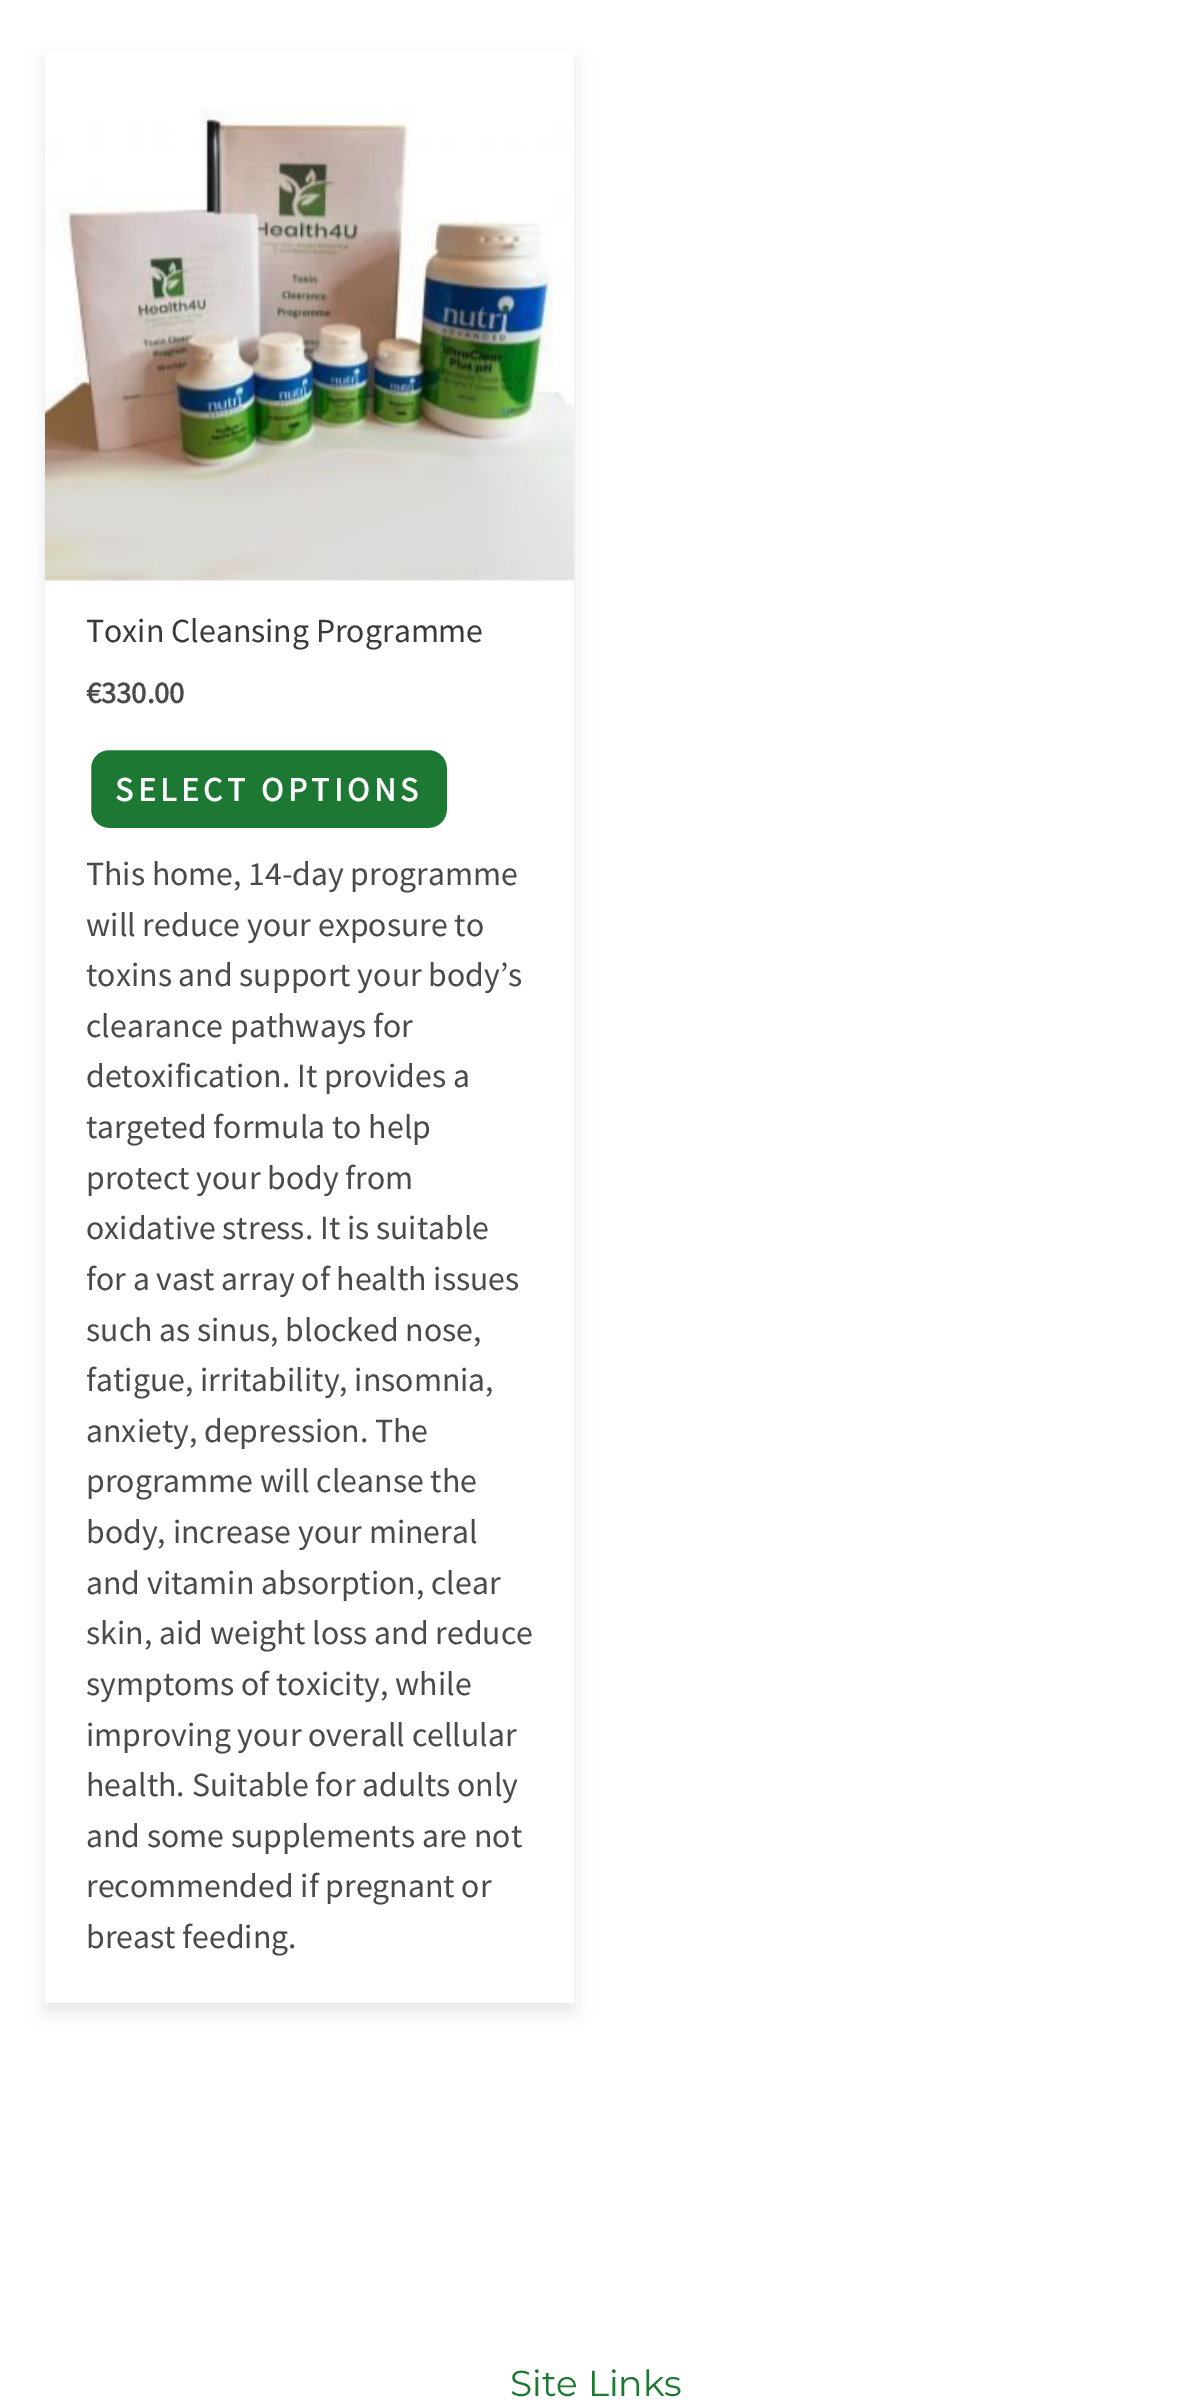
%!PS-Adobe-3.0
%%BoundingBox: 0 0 1191 2408
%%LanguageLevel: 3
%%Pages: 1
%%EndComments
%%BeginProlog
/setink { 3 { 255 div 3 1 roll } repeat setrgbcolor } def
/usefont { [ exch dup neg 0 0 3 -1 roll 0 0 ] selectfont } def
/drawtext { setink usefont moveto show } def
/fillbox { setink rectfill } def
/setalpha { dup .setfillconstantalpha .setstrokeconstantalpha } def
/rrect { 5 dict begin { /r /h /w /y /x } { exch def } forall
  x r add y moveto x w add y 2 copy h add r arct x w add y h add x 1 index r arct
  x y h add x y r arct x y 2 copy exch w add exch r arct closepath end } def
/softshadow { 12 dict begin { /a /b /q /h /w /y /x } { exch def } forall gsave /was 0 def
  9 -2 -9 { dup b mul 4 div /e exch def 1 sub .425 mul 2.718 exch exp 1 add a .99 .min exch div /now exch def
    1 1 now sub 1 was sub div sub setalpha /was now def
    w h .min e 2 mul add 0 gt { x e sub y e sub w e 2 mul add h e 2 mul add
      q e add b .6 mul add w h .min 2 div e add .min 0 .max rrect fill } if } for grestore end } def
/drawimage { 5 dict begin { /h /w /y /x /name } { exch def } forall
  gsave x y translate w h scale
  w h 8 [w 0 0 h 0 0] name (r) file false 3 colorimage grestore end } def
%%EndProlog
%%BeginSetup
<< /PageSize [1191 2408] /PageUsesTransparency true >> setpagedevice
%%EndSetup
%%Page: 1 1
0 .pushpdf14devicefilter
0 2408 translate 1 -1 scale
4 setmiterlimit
0 0 1191 2408 255 255 255 fillbox
gsave
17 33 moveto 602 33 lineto 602 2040 lineto 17 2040 lineto closepath 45 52 moveto 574 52 lineto 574 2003 lineto 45 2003 lineto closepath eoclip newpath
0 0 0 setink
45 61 529 1951 0 9 0.1 softshadow
grestore
(assets/img1.rgb) 45 108 529 473 drawimage
(Toxin Cleansing Programme) 86 642 /SourceSansPro-Regular 33.75 58 58 58 drawtext
(€330.00) 86 703 /SourceSansPro-Bold 30.5 74 74 74 drawtext
29 120 51 setink
88.5 747.5 361 83 20.5 rrect gsave fill grestore
255 255 255 setink
5 setlinewidth
stroke
/SourceSansPro-Bold 33.75 usefont
115 801 moveto 4.5 0 (SELECT OPTIONS) ashow
(This home, 14-day programme) 86 885 /SourceSansPro-Regular 33.75 74 74 74 drawtext
(will reduce your exposure to) 86 936 /SourceSansPro-Regular 33.75 74 74 74 drawtext
(toxins and support your body’s) 86 986 /SourceSansPro-Regular 33.75 74 74 74 drawtext
(clearance pathways for) 86 1037 /SourceSansPro-Regular 33.75 74 74 74 drawtext
(detoxification. It provides a) 86 1087 /SourceSansPro-Regular 33.75 74 74 74 drawtext
(targeted formula to help) 86 1138 /SourceSansPro-Regular 33.75 74 74 74 drawtext
(protect your body from) 86 1189 /SourceSansPro-Regular 33.75 74 74 74 drawtext
(oxidative stress. It is suitable) 86 1239 /SourceSansPro-Regular 33.75 74 74 74 drawtext
(for a vast array of health issues) 86 1290 /SourceSansPro-Regular 33.75 74 74 74 drawtext
(such as sinus, blocked nose,) 86 1341 /SourceSansPro-Regular 33.75 74 74 74 drawtext
(fatigue, irritability, insomnia,) 86 1391 /SourceSansPro-Regular 33.75 74 74 74 drawtext
(anxiety, depression. The) 86 1442 /SourceSansPro-Regular 33.75 74 74 74 drawtext
(programme will cleanse the) 86 1492 /SourceSansPro-Regular 33.75 74 74 74 drawtext
(body, increase your mineral) 86 1543 /SourceSansPro-Regular 33.75 74 74 74 drawtext
(and vitamin absorption, clear) 86 1594 /SourceSansPro-Regular 33.75 74 74 74 drawtext
(skin, aid weight loss and reduce) 86 1644 /SourceSansPro-Regular 33.75 74 74 74 drawtext
(symptoms of toxicity, while) 86 1695 /SourceSansPro-Regular 33.75 74 74 74 drawtext
(improving your overall cellular) 86 1746 /SourceSansPro-Regular 33.75 74 74 74 drawtext
(health. Suitable for adults only) 86 1796 /SourceSansPro-Regular 33.75 74 74 74 drawtext
(and some supplements are not) 86 1847 /SourceSansPro-Regular 33.75 74 74 74 drawtext
(recommended if pregnant or) 86 1897 /SourceSansPro-Regular 33.75 74 74 74 drawtext
(breast feeding.) 86 1948 /SourceSansPro-Regular 33.75 74 74 74 drawtext
(Site Links) 510 2396 /Montserrat-Regular 36 29 120 51 drawtext
.poppdf14devicefilter showpage
%%EOF
